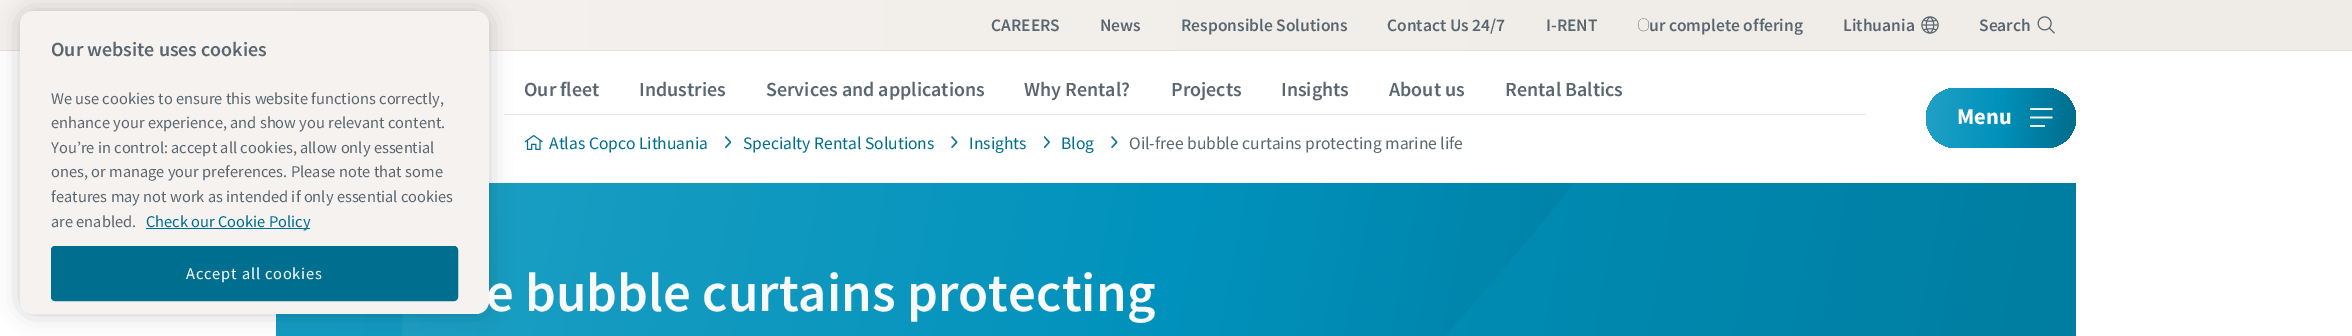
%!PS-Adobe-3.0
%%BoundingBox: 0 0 2352 336
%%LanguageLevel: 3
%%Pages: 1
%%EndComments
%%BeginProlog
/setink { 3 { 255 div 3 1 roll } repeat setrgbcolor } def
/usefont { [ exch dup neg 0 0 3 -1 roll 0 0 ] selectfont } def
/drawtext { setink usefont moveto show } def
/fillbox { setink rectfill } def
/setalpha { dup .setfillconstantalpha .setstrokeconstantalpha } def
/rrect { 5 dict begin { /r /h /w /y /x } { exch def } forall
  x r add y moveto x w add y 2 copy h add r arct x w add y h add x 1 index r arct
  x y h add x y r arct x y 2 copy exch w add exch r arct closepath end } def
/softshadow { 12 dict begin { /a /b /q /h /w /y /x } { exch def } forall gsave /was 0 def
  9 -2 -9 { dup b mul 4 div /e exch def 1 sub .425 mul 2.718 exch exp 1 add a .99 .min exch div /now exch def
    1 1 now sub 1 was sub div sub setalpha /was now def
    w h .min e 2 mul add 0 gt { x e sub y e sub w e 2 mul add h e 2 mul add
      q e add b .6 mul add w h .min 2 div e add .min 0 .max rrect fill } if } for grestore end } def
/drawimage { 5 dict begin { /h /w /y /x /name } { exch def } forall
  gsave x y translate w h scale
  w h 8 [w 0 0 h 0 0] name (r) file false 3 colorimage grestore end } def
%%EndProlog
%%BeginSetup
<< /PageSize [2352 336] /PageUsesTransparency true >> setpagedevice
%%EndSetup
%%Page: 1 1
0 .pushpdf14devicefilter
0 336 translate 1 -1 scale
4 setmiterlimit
0 0 2352 336 255 255 255 fillbox
gsave 0 0 moveto 2352 0 lineto 2352 50 lineto 0 50 lineto closepath clip newpath
<< /ShadingType 2 /ColorSpace /DeviceRGB /Coords [0 25 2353 25] /Extend [true true] /Function << /FunctionType 2 /Domain [0 1] /C0 [0.961 0.949 0.937] /C1 [0.937 0.922 0.902] /N 1 >> >> shfill grestore
0 50 2352 1 231 224 218 fillbox
504 114 1362 1 230 230 230 fillbox
gsave 276 183 moveto 2076 183 lineto 2076 336 lineto 276 336 lineto closepath clip newpath
<< /ShadingType 2 /ColorSpace /DeviceRGB /Coords [272 207 2081 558] /Extend [true true] /Function << /FunctionType 3 /Domain [0 1] /Functions [<< /FunctionType 2 /Domain [0 1] /C0 [0.122 0.624 0.769] /C1 [0.122 0.624 0.769] /N 1 >> << /FunctionType 2 /Domain [0 1] /C0 [0.122 0.624 0.769] /C1 [0 0.573 0.737] /N 1 >> << /FunctionType 2 /Domain [0 1] /C0 [0 0.573 0.737] /C1 [0 0.435 0.561] /N 1 >> << /FunctionType 2 /Domain [0 1] /C0 [0 0.435 0.561] /C1 [0 0.435 0.561] /N 1 >>] /Bounds [0.04 0.49 0.97] /Encode [0 1 0 1 0 1 0 1] >> >> shfill grestore
gsave
276 183 1800 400 rectclip
0.4 setalpha
0 146 188 setink
2137 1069 moveto 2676 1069 lineto 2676 -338 lineto 1972 -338 lineto 1557 231 1073 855 709 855 curveto 614 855 543 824 492 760 curveto 369 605 370 261 495 -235 curveto 504 -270 513 -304 523 -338 curveto 175 -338 lineto 175 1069 lineto 1158 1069 lineto 1514 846 1765 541 1881 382 curveto 1877 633 1962 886 2137 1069 curveto closepath eofill
grestore
0 0 0 setink
20 11 469 303 13 11 0.2 softshadow
(e bubble curtains protecting) 486 311 /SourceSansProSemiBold-SemiBold 55 248 249 249 drawtext
245 242 239 setink
20 11 469 303 13 rrect fill
(Our website uses cookies) 51 56 /SourceSansProSemiBold-SemiBold 20 91 103 112 drawtext
(We use cookies to ensure this website functions correctly,) 51 104 /SourceSansPro-Regular 16.4 91 103 112 drawtext
(enhance your experience, and show you relevant content.) 51 128 /SourceSansPro-Regular 16.4 91 103 112 drawtext
(You’re in control: accept all cookies, allow only essential) 51 153 /SourceSansPro-Regular 16.4 91 103 112 drawtext
(ones, or manage your preferences. Please note that some) 51 177 /SourceSansPro-Regular 16.4 91 103 112 drawtext
(features may not work as intended if only essential cookies) 51 202 /SourceSansPro-Regular 16.4 91 103 112 drawtext
(are enabled.) 51 227 /SourceSansPro-Regular 16.4 91 103 112 drawtext
146 228 164 1 0 111 143 fillbox
(Check our Cookie Policy) 146 227 /SourceSansPro-Regular 16.4 0 111 143 drawtext
51.5 246.5 406 54 3.5 rrect gsave fill grestore
stroke
255 255 255 setink
186 279 moveto 0.8 0 (Accept all cookies) ashow
(CAREERS) 991 31 /SourceSansProSemiBold-SemiBold 17.5 91 103 112 drawtext
(News) 1100 31 /SourceSansProSemiBold-SemiBold 17.5 91 103 112 drawtext
(Responsible Solutions) 1181 31 /SourceSansProSemiBold-SemiBold 17.5 91 103 112 drawtext
(Contact Us 24/7) 1387 31 /SourceSansProSemiBold-SemiBold 17.5 91 103 112 drawtext
(I-RENT) 1546 31 /SourceSansProSemiBold-SemiBold 17.5 91 103 112 drawtext
(O) 1637 31 /NotoSans-Thin 17.5 91 103 112 drawtext
(ur complete offering) 1649 31 /SourceSansProSemiBold-SemiBold 17.5 91 103 112 drawtext
(Lithuania) 1843 31 /SourceSansProSemiBold-SemiBold 17.5 91 103 112 drawtext
(assets/img1.rgb) 1921 16 18 18 drawimage
(Search) 1979 31 /SourceSansProSemiBold-SemiBold 17.5 91 103 112 drawtext
(assets/img2.rgb) 2037 16 18 18 drawimage
(Our fleet) 524 96 /SourceSansProSemiBold-SemiBold 20 91 103 112 drawtext
(Industries) 639 96 /SourceSansProSemiBold-SemiBold 20 91 103 112 drawtext
(Services and applications) 766 96 /SourceSansProSemiBold-SemiBold 20 91 103 112 drawtext
(Why Rental?) 1024 96 /SourceSansProSemiBold-SemiBold 20 91 103 112 drawtext
(Projects) 1171 96 /SourceSansProSemiBold-SemiBold 20 91 103 112 drawtext
(Insights) 1281 96 /SourceSansProSemiBold-SemiBold 20 91 103 112 drawtext
(About us) 1389 96 /SourceSansProSemiBold-SemiBold 20 91 103 112 drawtext
(Rental Baltics) 1505 96 /SourceSansProSemiBold-SemiBold 20 91 103 112 drawtext
(assets/img3.rgb) 524 134 19 16 drawimage
(Atlas Copco Lithuania) 549 149 /SourceSansPro-Regular 17.5 0 111 143 drawtext
(assets/img4.rgb) 725 136 6 13 drawimage
(Specialty Rental Solutions) 743 149 /SourceSansPro-Regular 17.5 0 111 143 drawtext
(assets/img5.rgb) 951 136 7 12 drawimage
(Insights) 969 149 /SourceSansPro-Regular 17.5 0 111 143 drawtext
(assets/img6.rgb) 1044 136 6 13 drawimage
(Blog) 1061 149 /SourceSansPro-Regular 17.5 0 111 143 drawtext
(assets/img5.rgb) 1111 136 7 12 drawimage
(Oil-free bubble curtains protecting marine life) 1129 149 /SourceSansPro-Regular 17.5 91 103 112 drawtext
gsave 1926 88 150 60 30 rrect clip newpath
<< /ShadingType 2 /ColorSpace /DeviceRGB /Coords [1925 112 2078 123] /Extend [true true] /Function << /FunctionType 3 /Domain [0 1] /Functions [<< /FunctionType 2 /Domain [0 1] /C0 [0.122 0.624 0.769] /C1 [0.122 0.624 0.769] /N 1 >> << /FunctionType 2 /Domain [0 1] /C0 [0.122 0.624 0.769] /C1 [0 0.573 0.737] /N 1 >> << /FunctionType 2 /Domain [0 1] /C0 [0 0.573 0.737] /C1 [0 0.435 0.561] /N 1 >> << /FunctionType 2 /Domain [0 1] /C0 [0 0.435 0.561] /C1 [0 0.435 0.561] /N 1 >>] /Bounds [0.04 0.48 0.96] /Encode [0 1 0 1 0 1 0 1] >> >> shfill grestore
(Menu) 1957 124 /SourceSansPro-Bold 22.5 255 255 255 drawtext
(assets/img7.rgb) 2030 108 23 19 drawimage
.poppdf14devicefilter showpage
%%EOF
